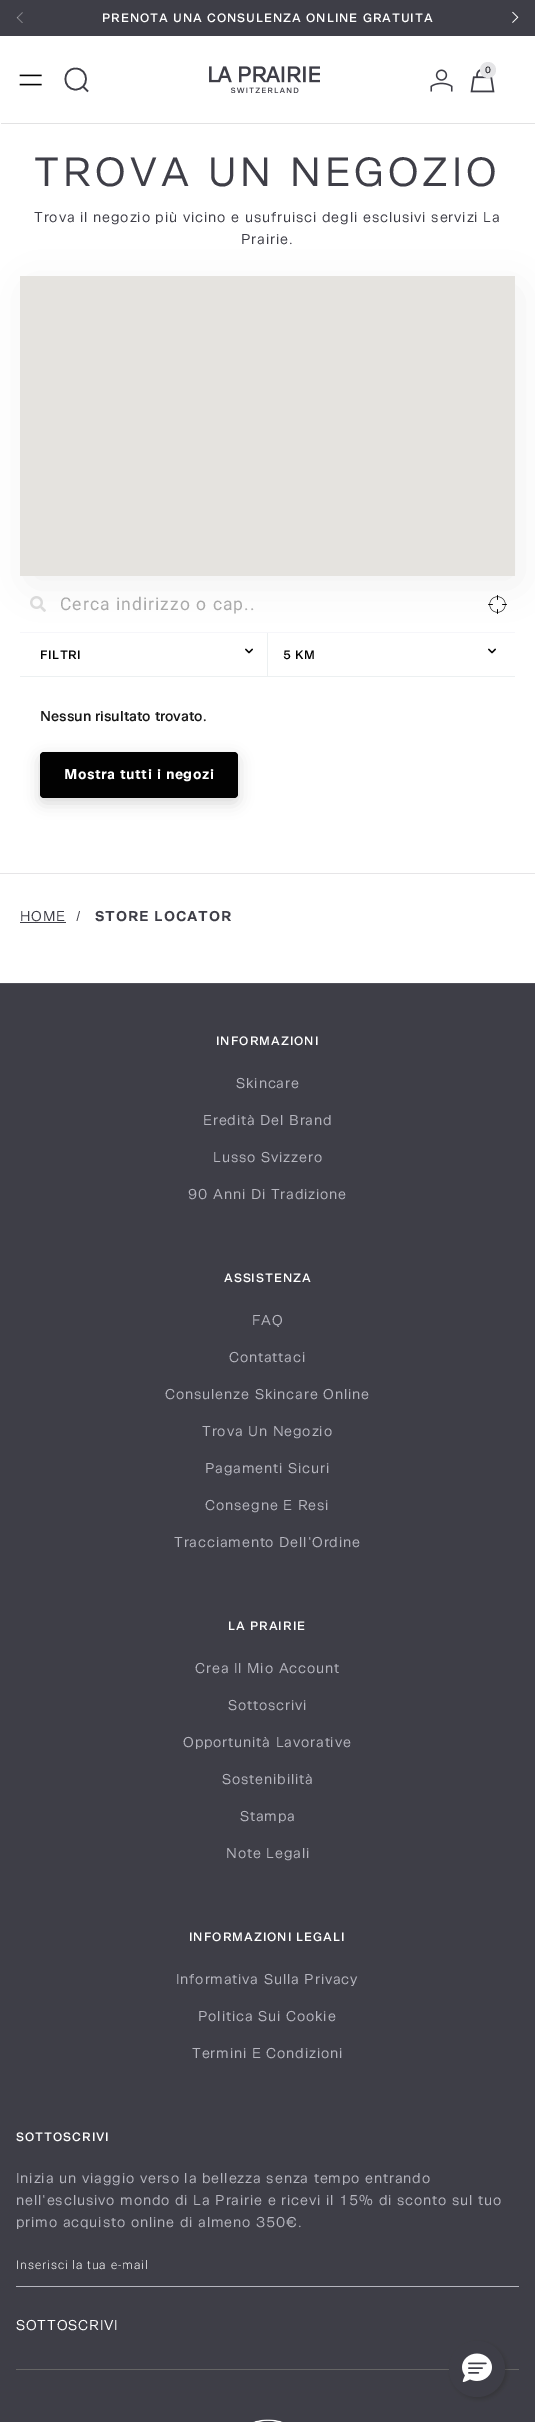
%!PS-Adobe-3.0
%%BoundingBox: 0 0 535 2422
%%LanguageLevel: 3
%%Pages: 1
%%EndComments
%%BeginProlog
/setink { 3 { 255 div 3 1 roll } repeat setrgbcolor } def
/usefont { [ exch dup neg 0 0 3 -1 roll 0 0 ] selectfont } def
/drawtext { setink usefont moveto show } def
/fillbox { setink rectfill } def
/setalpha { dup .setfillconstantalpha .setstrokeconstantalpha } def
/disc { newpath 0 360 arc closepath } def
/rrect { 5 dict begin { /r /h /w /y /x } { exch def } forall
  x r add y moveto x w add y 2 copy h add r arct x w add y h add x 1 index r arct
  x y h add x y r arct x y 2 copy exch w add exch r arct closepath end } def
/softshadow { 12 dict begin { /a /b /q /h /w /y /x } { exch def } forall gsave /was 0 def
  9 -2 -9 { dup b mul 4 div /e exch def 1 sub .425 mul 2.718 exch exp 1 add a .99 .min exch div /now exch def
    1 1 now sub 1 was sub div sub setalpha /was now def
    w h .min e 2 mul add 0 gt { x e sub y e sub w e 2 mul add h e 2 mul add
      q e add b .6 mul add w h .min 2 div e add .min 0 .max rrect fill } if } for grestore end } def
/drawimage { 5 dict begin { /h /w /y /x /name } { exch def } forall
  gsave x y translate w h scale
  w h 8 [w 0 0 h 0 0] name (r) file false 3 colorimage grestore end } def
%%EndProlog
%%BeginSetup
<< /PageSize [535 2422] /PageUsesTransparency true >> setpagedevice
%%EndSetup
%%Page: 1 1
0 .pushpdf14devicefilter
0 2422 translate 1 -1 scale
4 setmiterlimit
0 0 535 2422 255 255 255 fillbox
0 0 535 36 62 62 71 fillbox
(assets/img1.rgb) 16 12 7 11 drawimage
/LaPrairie-Regular 12 usefont
255 255 255 setink
102 22 moveto 0.95 0 (PRENOTA UNA CONSULENZA ONLINE GRATUITA) ashow
(assets/img2.rgb) 512 11 7 12 drawimage
(assets/img3.rgb) 19 74 23 12 drawimage
62 62 71 setink
1.6 setlinewidth
83 86.5 moveto 88 91.5 lineto 75.5 89.5 moveto 62 89.5 62 68.5 75.5 68.5 curveto 89.5 68.5 89.5 89.5 75.5 89.5 curveto closepath stroke
(assets/img4.rgb) 209 66 111 27 drawimage
(assets/img5.rgb) 430 69 23 23 drawimage
(assets/img6.rgb) 470 69 25 24 drawimage
229 229 231 setink
488 70 8 disc fill
(0) 485 73 /LaPrairie-Regular 9 32 32 37 drawtext
1 123 534 1 226 226 227 fillbox
/LaPrairie-Light 40 usefont
62 62 71 setink
34 186 moveto 4 0 (TROVA UN NEGOZIO) ashow
/LaPrairie-Light 14 usefont
34 222 moveto 0.85 0 (Trova il negozio più vicino e usufruisci degli esclusivi servizi La) ashow
241 244 moveto 0.85 0 (Prairie.) ashow
20 632 495 1 246 246 250 fillbox
(assets/img7.rgb) 30 596 16 16 drawimage
(assets/img8.rgb) 488 595 19 19 drawimage
20 676 495 1 236 240 241 fillbox
267 633 1 44 236 240 241 fillbox
(assets/img9.rgb) 245 648 8 6 drawimage
(assets/img9.rgb) 488 648 8 6 drawimage
0 0 0 setink
26 286 495 300 6 21 0.05 softshadow
20 276 495 300 229 227 223 fillbox
/Roboto-Regular 17.5 usefont
170 170 170 setink
60 610 moveto 1.05 0 (Cerca indirizzo o cap..) ashow
/LaPrairie-Regular 12 usefont
2 2 2 setink
40 659 moveto 0.5 0 (FILTRI) ashow
283 659 moveto 0.5 0 (5 KM) ashow
(Nessun risultato trovato.) 40 721 /LaPrairie-Regular 14 23 23 23 drawtext
0 0 0 setink
40 757 198 46 4 7.5 0.15 softshadow
2 2 2 setink
40 752 198 46 4 rrect fill
/LaPrairie-Bold 14 usefont
255 255 255 setink
64 779 moveto 0.5 0 (Mostra tutti i negozi) ashow
0 873 535 1 230 229 231 fillbox
/LaPrairie-Light 14 usefont
62 62 71 setink
20 921 moveto 0.85 0 (HOME) ashow
20 922 46 1 62 62 71 fillbox
76 921 moveto 0.85 0 (/) ashow
/LaPrairie-Bold 14 usefont
95 921 moveto 0.85 0 (STORE LOCATOR) ashow
0 984 535 1438 62 62 71 fillbox
0 983 535 1 80 80 89 fillbox
16 2369 503 1 100 100 100 fillbox
/LaPrairie-Regular 12 usefont
255 255 255 setink
216 1045 moveto 0.95 0 (INFORMAZIONI) ashow
/LaPrairie-Light 14 usefont
181 181 190 setink
236 1088 moveto 0.85 0 (Skincare) ashow
203 1125 moveto 0.85 0 (Eredità Del Brand) ashow
213 1162 moveto 0.85 0 (Lusso Svizzero) ashow
188 1199 moveto 0.85 0 (90 Anni Di Tradizione) ashow
/LaPrairie-Regular 12 usefont
255 255 255 setink
224 1282 moveto 0.95 0 (ASSISTENZA) ashow
/LaPrairie-Light 14 usefont
181 181 190 setink
252 1325 moveto 0.85 0 (FAQ) ashow
229 1362 moveto 0.85 0 (Contattaci) ashow
165 1399 moveto 0.85 0 (Consulenze Skincare Online) ashow
202 1436 moveto 0.85 0 (Trova Un Negozio) ashow
205 1473 moveto 0.85 0 (Pagamenti Sicuri) ashow
205 1510 moveto 0.85 0 (Consegne E Resi) ashow
174 1547 moveto 0.85 0 (Tracciamento Dell'Ordine) ashow
/LaPrairie-Regular 12 usefont
255 255 255 setink
228 1630 moveto 0.95 0 (LA PRAIRIE) ashow
/LaPrairie-Light 14 usefont
181 181 190 setink
195 1673 moveto 0.85 0 (Crea Il Mio Account) ashow
228 1710 moveto 0.85 0 (Sottoscrivi) ashow
183 1747 moveto 0.85 0 (Opportunità Lavorative) ashow
222 1784 moveto 0.85 0 (Sostenibilità) ashow
240 1821 moveto 0.85 0 (Stampa) ashow
226 1858 moveto 0.85 0 (Note Legali) ashow
/LaPrairie-Regular 12 usefont
255 255 255 setink
189 1941 moveto 0.95 0 (INFORMAZIONI LEGALI) ashow
/LaPrairie-Light 14 usefont
181 181 190 setink
176 1984 moveto 0.85 0 (Informativa Sulla Privacy) ashow
198 2021 moveto 0.85 0 (Politica Sui Cookie) ashow
192 2058 moveto 0.85 0 (Termini E Condizioni) ashow
/LaPrairie-Regular 12 usefont
255 255 255 setink
16 2141 moveto 0.95 0 (SOTTOSCRIVI) ashow
/LaPrairie-Light 14 usefont
181 181 190 setink
16 2183 moveto 0.85 0 (Inizia un viaggio verso la bellezza senza tempo entrando) ashow
16 2205 moveto 0.85 0 (nell'esclusivo mondo di La Prairie e ricevi il 15% di sconto sul tuo) ashow
16 2227 moveto 0.85 0 (primo acquisto online di almeno 350€.) ashow
16 2286 503 1 181 181 190 fillbox
/Roboto-Light 12 usefont
255 255 255 setink
16 2269 moveto 0.95 0 (Inserisci la tua e-mail) ashow
/LaPrairie-Light 14 usefont
16 2330 moveto 0.85 0 (SOTTOSCRIVI) ashow
(assets/img10.rgb) 253 2419 30 3 drawimage
45 45 45 setink
451 2343 56 56 28 2.5 0.5 softshadow
62 62 71 setink
477 2369 28 disc fill
(assets/img11.rgb) 462 2353 30 29 drawimage
.poppdf14devicefilter showpage
%%EOF
